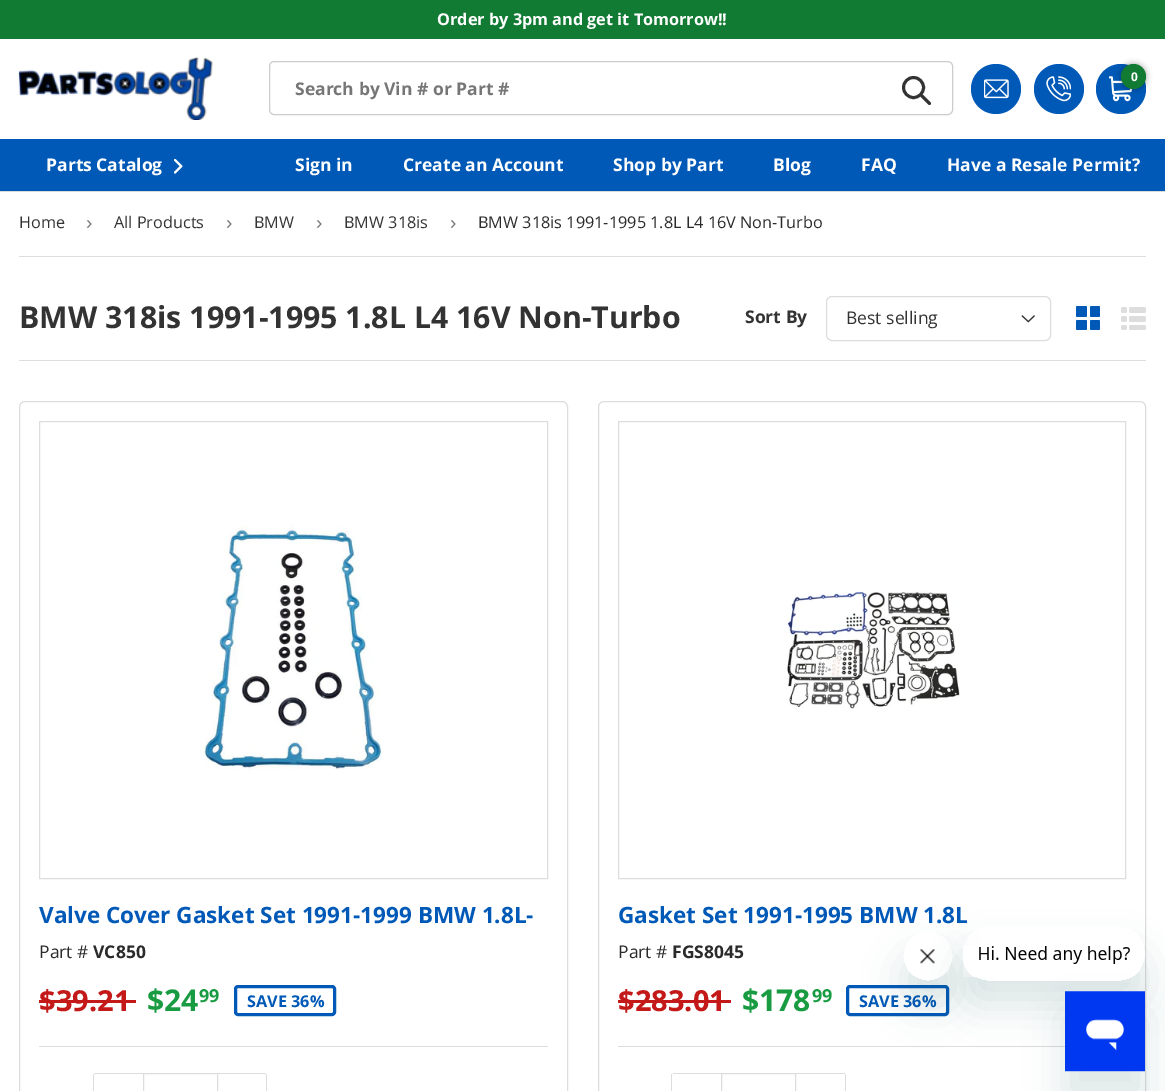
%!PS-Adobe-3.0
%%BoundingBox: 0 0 1165 1091
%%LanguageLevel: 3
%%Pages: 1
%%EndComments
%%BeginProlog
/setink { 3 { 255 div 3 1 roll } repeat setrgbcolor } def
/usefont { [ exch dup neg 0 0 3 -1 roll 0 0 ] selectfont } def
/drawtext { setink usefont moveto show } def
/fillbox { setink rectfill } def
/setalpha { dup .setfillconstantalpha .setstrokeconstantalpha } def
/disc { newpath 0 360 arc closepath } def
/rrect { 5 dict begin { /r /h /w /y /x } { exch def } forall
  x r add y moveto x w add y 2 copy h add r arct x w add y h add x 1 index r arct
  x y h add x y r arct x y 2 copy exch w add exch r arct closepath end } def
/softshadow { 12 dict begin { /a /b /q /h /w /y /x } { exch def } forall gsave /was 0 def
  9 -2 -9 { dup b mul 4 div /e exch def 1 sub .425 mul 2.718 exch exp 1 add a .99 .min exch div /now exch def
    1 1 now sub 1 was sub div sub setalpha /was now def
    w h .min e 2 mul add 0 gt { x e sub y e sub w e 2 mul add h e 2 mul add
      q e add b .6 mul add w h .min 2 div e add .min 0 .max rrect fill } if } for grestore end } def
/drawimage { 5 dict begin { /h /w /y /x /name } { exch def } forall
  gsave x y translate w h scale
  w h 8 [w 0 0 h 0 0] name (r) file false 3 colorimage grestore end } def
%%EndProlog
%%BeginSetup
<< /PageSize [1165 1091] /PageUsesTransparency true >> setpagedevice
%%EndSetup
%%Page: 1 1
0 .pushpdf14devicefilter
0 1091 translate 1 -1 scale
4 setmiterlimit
0 0 1165 1091 255 255 255 fillbox
0 0 1165 39 17 122 51 fillbox
(Order by 3pm and get it Tomorrow!!) 437 25 /OpenSans-Bold 16.25 255 255 255 drawtext
0 191 1165 1 218 218 218 fillbox
(assets/img1.rgb) 18 57 195 63 drawimage
0 89 183 setink
996 89 25 disc fill
(assets/img2.rgb) 984 79 25 20 drawimage
1059 89 25 disc fill
(assets/img3.rgb) 1046 76 25 26 drawimage
1121 89 25 disc fill
(assets/img4.rgb) 1109 76 24 26 drawimage
0 0 0 setink
1121 64 25 25 12.5 3 0.35 softshadow
17 122 51 setink
1133.5 76.5 12.5 disc fill
(0) 1131 81 /OpenSans-Bold 12 255 255 255 drawtext
204 204 204 setink
269.5 61.5 683 53 4.5 rrect stroke
(Search by Vin # or Part #) 295 95 /OpenSans-Bold 17.5 118 118 118 drawtext
51 51 51 setink
2.9 setlinewidth
913.5 87.5 10 disc stroke
1 setlinecap
1 setlinejoin
921.5 95.5 moveto 929.5 103.5 lineto stroke
0 139 1165 52 0 89 183 fillbox
(Parts Catalog) 46 171 /OpenSans-Bold 17.5 255 255 255 drawtext
(assets/img5.rgb) 174 159 9 15 drawimage
(Sign in) 295 171 /OpenSans-Bold 17.5 255 255 255 drawtext
(Create an Account) 403 171 /OpenSans-Bold 17.5 255 255 255 drawtext
(Shop by Part) 613 171 /OpenSans-Bold 17.5 255 255 255 drawtext
(Blog) 773 171 /OpenSans-Bold 17.5 255 255 255 drawtext
(FAQ) 861 171 /OpenSans-Bold 17.5 255 255 255 drawtext
(Have a Resale Permit?) 947 171 /OpenSans-Bold 17.5 255 255 255 drawtext
19 256 1127 1 221 221 221 fillbox
(Home) 19 228 /OpenSans-Regular 16.25 51 51 51 drawtext
(›) 86 229 /LiberationSans-Regular 19 118 118 118 drawtext
(All Products) 114 228 /OpenSans-Regular 16.25 51 51 51 drawtext
(›) 226 229 /LiberationSans-Regular 19 118 118 118 drawtext
(BMW) 254 228 /OpenSans-Regular 16.25 51 51 51 drawtext
(›) 316 229 /LiberationSans-Regular 19 118 118 118 drawtext
(BMW 318is) 344 228 /OpenSans-Regular 16.25 51 51 51 drawtext
(›) 450 229 /LiberationSans-Regular 19 118 118 118 drawtext
(BMW 318is 1991-1995 1.8L L4 16V Non-Turbo) 478 228 /OpenSans-Regular 16.25 42 43 42 drawtext
19 360 1127 1 223 223 223 fillbox
(BMW 318is 1991-1995 1.8L L4 16V Non-Turbo) 19 328 /OpenSans-Bold 30.3 51 51 51 drawtext
(Sort By) 745 323 /OpenSans-Bold 17.5 51 51 51 drawtext
(assets/img6.rgb) 1021 315 14 8 drawimage
221 221 221 setink
1 setlinewidth
0 setlinecap
0 setlinejoin
826.5 296.5 224 44 5.5 rrect stroke
(Best selling) 846 324 /OpenSans-Regular 17.5 51 51 51 drawtext
0 89 183 setink
1076 306 11 11 1.5 rrect fill
1090 306 10 11 1.5 rrect fill
1076 320 11 10 1.5 rrect fill
1090 320 10 10 1.5 rrect fill
(assets/img7.rgb) 1121 307 25 23 drawimage
221 221 221 setink
19.5 401.5 548 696 5.5 rrect stroke
39.5 421.5 508 457 rectstroke
(assets/img8.rgb) 200 525 183 245 drawimage
(Valve Cover Gasket Set 1991-1999 BMW 1.8L-) 39 923 /OpenSans-Bold 22.5 0 89 183 drawtext
(Part #) 39 958 /OpenSans-Regular 17.5 42 43 42 drawtext
(VC850) 93 958 /OpenSans-Bold 17.5 42 43 42 drawtext
39 1046 509 1 221 221 221 fillbox
($39.21) 39 1011 /OpenSans-Bold 29 195 25 25 drawtext
39 1000 97 3 195 25 25 fillbox
($24) 147 1011 /OpenSans-Bold 30 24 155 65 drawtext
(99) 199 1002 /OpenSans-Bold 18 24 155 65 drawtext
0 89 183 setink
3 setlinewidth
235.5 986.5 99 28 2.5 rrect stroke
(SAVE 36%) 247 1007 /OpenSans-Bold 16.25 0 89 183 drawtext
94 1073 49 1 221 221 221 fillbox
93 1074 1 17 221 221 221 fillbox
1 setlinewidth
143.5 1073.5 74 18 rectstroke
218 1073 48 1 221 221 221 fillbox
266 1074 1 17 221 221 221 fillbox
598.5 401.5 547 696 5.5 rrect stroke
618.5 421.5 507 457 rectstroke
(assets/img9.rgb) 787 591 173 118 drawimage
(Gasket Set 1991-1995 BMW 1.8L) 618 923 /OpenSans-Bold 22.5 0 89 183 drawtext
(Part #) 618 958 /OpenSans-Regular 17.5 42 43 42 drawtext
(FGS8045) 672 958 /OpenSans-Bold 17.5 42 43 42 drawtext
618 1046 447 1 221 221 221 fillbox
($283.01) 618 1011 /OpenSans-Bold 29 195 25 25 drawtext
618 1000 113 3 195 25 25 fillbox
($178) 742 1011 /OpenSans-Bold 30 24 155 65 drawtext
(99) 812 1002 /OpenSans-Bold 18 24 155 65 drawtext
0 89 183 setink
3 setlinewidth
847.5 986.5 100 28 2.5 rrect stroke
(SAVE 36%) 859 1007 /OpenSans-Bold 16.25 0 89 183 drawtext
673 1073 48 1 221 221 221 fillbox
671 1074 1 17 221 221 221 fillbox
1 setlinewidth
721.5 1073.5 74 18 rectstroke
796 1073 49 1 221 221 221 fillbox
845 1074 1 17 221 221 221 fillbox
gsave
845 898 moveto 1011 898 lineto 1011 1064 lineto 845 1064 lineto closepath 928 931 moveto 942 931 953 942 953 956 curveto 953 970 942 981 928 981 curveto 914 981 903 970 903 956 curveto 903 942 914 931 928 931 curveto closepath eoclip newpath
23 73 77 setink
903 956 50 50 25 19 0.15 softshadow
grestore
(assets/img11.rgb) 920 949 15 15 drawimage
gsave
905 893 moveto 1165 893 lineto 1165 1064 lineto 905 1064 lineto closepath 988 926 moveto 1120 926 lineto 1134 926 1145 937 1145 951 curveto 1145 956 lineto 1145 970 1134 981 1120 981 curveto 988 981 lineto 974 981 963 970 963 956 curveto 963 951 lineto 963 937 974 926 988 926 curveto closepath eoclip newpath
23 73 77 setink
963 951 182 55 25 19 0.15 softshadow
grestore
(assets/img10.rgb) 963 946 167 31 drawimage
23 73 77 setink
1065 1016 80 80 0 19 0.15 softshadow
(assets/img12.rgb) 1065 991 80 81 drawimage
.poppdf14devicefilter showpage
%%EOF
